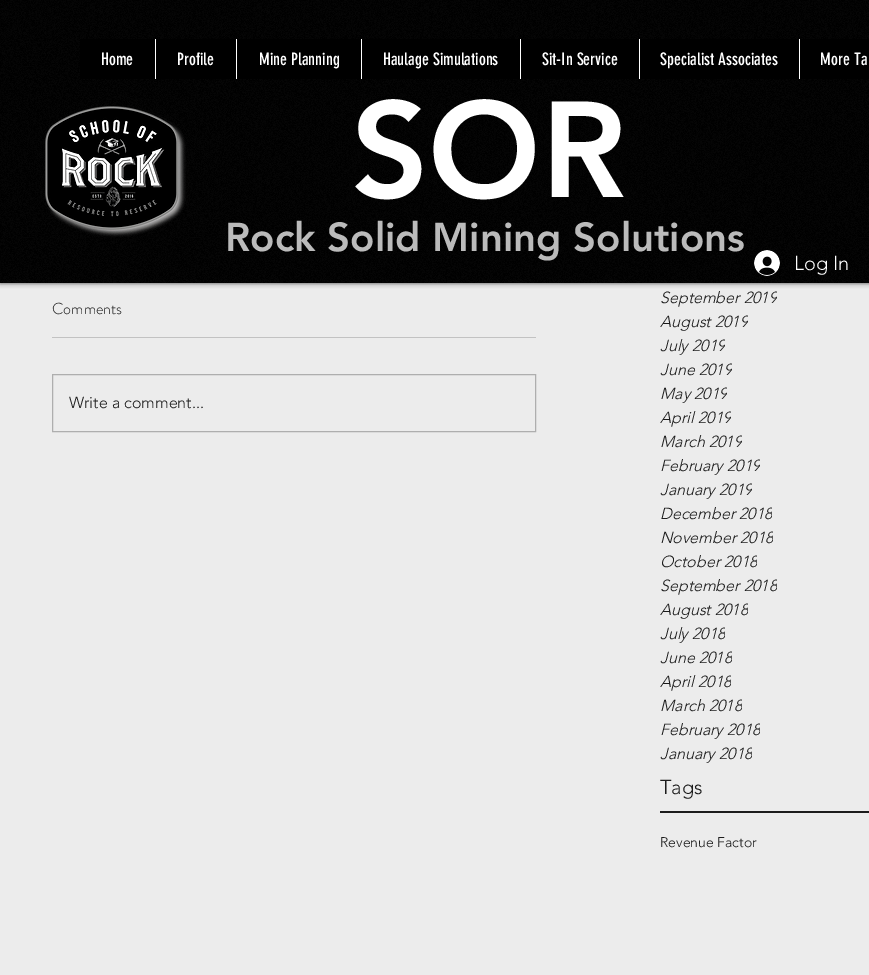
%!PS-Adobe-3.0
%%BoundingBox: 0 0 869 975
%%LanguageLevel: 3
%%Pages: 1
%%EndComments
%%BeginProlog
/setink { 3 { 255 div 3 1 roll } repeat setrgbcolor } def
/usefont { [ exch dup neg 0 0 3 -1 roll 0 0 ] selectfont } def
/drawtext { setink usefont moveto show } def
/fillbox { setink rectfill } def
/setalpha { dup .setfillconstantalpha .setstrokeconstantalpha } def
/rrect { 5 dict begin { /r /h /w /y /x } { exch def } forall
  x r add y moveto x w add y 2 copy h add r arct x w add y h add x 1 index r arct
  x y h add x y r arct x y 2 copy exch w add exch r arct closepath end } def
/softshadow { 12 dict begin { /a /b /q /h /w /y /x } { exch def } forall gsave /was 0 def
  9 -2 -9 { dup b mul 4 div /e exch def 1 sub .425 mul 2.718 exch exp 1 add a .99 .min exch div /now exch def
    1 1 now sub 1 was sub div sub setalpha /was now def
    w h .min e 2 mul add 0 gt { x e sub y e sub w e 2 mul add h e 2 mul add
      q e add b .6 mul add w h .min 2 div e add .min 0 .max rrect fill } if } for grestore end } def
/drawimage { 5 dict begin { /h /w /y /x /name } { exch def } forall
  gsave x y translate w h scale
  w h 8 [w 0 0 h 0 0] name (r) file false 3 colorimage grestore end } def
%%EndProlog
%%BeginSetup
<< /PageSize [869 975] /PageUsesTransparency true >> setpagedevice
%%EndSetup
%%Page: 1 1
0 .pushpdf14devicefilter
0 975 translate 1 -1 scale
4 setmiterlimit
0 0 869 975 236 236 236 fillbox
0 0 0 setink
0 0 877 283 0 2.5 0.7 softshadow
0 0 869 283 0 0 0 fillbox
(assets/img1.rgb) 0 0 869 283 drawimage
80 39 789 40 0 0 0 fillbox
(Home) 101 65 /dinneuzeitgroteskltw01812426-Regular 17 255 255 255 drawtext
155 39 1 40 255 255 255 fillbox
(Profile) 177 65 /dinneuzeitgroteskltw01812426-Regular 17 255 255 255 drawtext
236 39 1 40 255 255 255 fillbox
(Mine Planning) 259 65 /dinneuzeitgroteskltw01812426-Regular 17 255 255 255 drawtext
361 39 1 40 255 255 255 fillbox
(Haulage Simulations) 383 65 /dinneuzeitgroteskltw01812426-Regular 17 255 255 255 drawtext
520 39 1 40 255 255 255 fillbox
(Sit-In Service) 542 65 /dinneuzeitgroteskltw01812426-Regular 17 255 255 255 drawtext
639 39 1 40 255 255 255 fillbox
(Specialist Associates) 660 65 /dinneuzeitgroteskltw01812426-Regular 17 255 255 255 drawtext
799 39 1 40 255 255 255 fillbox
(More Ta) 820 65 /dinneuzeitgroteskltw01812426-Regular 17 255 255 255 drawtext
(assets/img2.rgb) 45 106 141 131 drawimage
(SOR) 351 197 /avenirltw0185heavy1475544-Black 135 255 255 255 drawtext
(Rock Solid Mining Solutions) 225 251 /avenirltw0185heavy1475544-Black 40 187 187 187 drawtext
(assets/img3.rgb) 754 250 26 26 drawimage
(Log In) 794 270 /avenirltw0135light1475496-Light 20 255 255 255 drawtext
(Comments) 52 314 /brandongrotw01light-Light 16 28 28 28 drawtext
52 337 484 1 194 194 194 fillbox
174 174 174 setink
52.5 374.5 483 57 rectstroke
(Write a comment...) 69 408 /avenirltw0135light1475496-Light 16 28 28 28 drawtext
gsave
660 286 117 24 rectclip
(September 2019) 660 303 /avenirltw0135light1475496-LightItalic 16 28 28 28 drawtext
grestore
gsave
660 310 88 24 rectclip
(August 2019) 660 327 /avenirltw0135light1475496-LightItalic 16 28 28 28 drawtext
grestore
gsave
660 334 65 24 rectclip
(July 2019) 660 351 /avenirltw0135light1475496-LightItalic 16 28 28 28 drawtext
grestore
gsave
660 358 72 24 rectclip
(June 2019) 660 375 /avenirltw0135light1475496-LightItalic 16 28 28 28 drawtext
grestore
gsave
660 382 67 24 rectclip
(May 2019) 660 399 /avenirltw0135light1475496-LightItalic 16 28 28 28 drawtext
grestore
gsave
660 406 71 24 rectclip
(April 2019) 660 423 /avenirltw0135light1475496-LightItalic 16 28 28 28 drawtext
grestore
gsave
660 430 82 24 rectclip
(March 2019) 660 447 /avenirltw0135light1475496-LightItalic 16 28 28 28 drawtext
grestore
gsave
660 454 100 24 rectclip
(February 2019) 660 471 /avenirltw0135light1475496-LightItalic 16 28 28 28 drawtext
grestore
gsave
660 478 92 24 rectclip
(January 2019) 660 495 /avenirltw0135light1475496-LightItalic 16 28 28 28 drawtext
grestore
gsave
660 502 112 24 rectclip
(December 2018) 660 519 /avenirltw0135light1475496-LightItalic 16 28 28 28 drawtext
grestore
gsave
660 526 113 24 rectclip
(November 2018) 660 543 /avenirltw0135light1475496-LightItalic 16 28 28 28 drawtext
grestore
gsave
660 550 97 24 rectclip
(October 2018) 660 567 /avenirltw0135light1475496-LightItalic 16 28 28 28 drawtext
grestore
gsave
660 574 117 24 rectclip
(September 2018) 660 591 /avenirltw0135light1475496-LightItalic 16 28 28 28 drawtext
grestore
gsave
660 598 88 24 rectclip
(August 2018) 660 615 /avenirltw0135light1475496-LightItalic 16 28 28 28 drawtext
grestore
gsave
660 622 65 24 rectclip
(July 2018) 660 639 /avenirltw0135light1475496-LightItalic 16 28 28 28 drawtext
grestore
gsave
660 646 72 24 rectclip
(June 2018) 660 663 /avenirltw0135light1475496-LightItalic 16 28 28 28 drawtext
grestore
gsave
660 670 71 24 rectclip
(April 2018) 660 687 /avenirltw0135light1475496-LightItalic 16 28 28 28 drawtext
grestore
gsave
660 694 82 24 rectclip
(March 2018) 660 711 /avenirltw0135light1475496-LightItalic 16 28 28 28 drawtext
grestore
gsave
660 718 100 24 rectclip
(February 2018) 660 735 /avenirltw0135light1475496-LightItalic 16 28 28 28 drawtext
grestore
gsave
660 742 92 24 rectclip
(January 2018) 660 759 /avenirltw0135light1475496-LightItalic 16 28 28 28 drawtext
grestore
(Tags) 660 794 /avenirltw0135light1475496-Light 20 28 28 28 drawtext
660 811 209 2 28 28 28 fillbox
(Revenue Factor) 660 847 /avenirltw0135light1475496-Light 14 28 28 28 drawtext
.poppdf14devicefilter showpage
%%EOF
